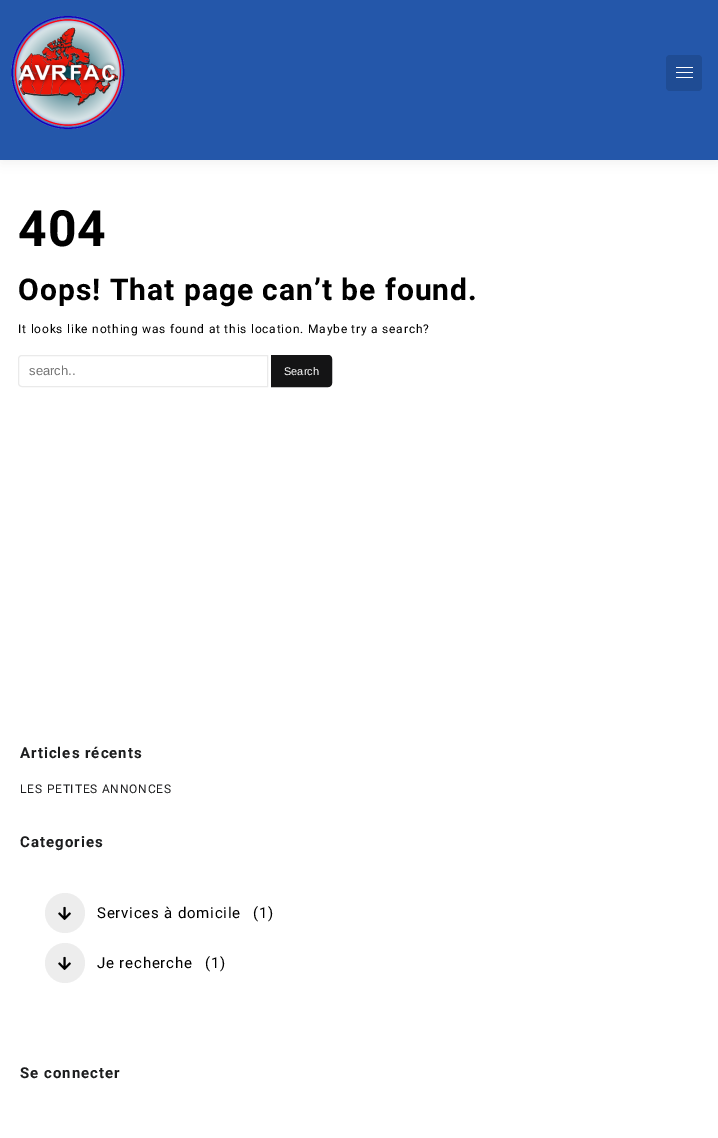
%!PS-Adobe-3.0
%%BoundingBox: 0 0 718 1138
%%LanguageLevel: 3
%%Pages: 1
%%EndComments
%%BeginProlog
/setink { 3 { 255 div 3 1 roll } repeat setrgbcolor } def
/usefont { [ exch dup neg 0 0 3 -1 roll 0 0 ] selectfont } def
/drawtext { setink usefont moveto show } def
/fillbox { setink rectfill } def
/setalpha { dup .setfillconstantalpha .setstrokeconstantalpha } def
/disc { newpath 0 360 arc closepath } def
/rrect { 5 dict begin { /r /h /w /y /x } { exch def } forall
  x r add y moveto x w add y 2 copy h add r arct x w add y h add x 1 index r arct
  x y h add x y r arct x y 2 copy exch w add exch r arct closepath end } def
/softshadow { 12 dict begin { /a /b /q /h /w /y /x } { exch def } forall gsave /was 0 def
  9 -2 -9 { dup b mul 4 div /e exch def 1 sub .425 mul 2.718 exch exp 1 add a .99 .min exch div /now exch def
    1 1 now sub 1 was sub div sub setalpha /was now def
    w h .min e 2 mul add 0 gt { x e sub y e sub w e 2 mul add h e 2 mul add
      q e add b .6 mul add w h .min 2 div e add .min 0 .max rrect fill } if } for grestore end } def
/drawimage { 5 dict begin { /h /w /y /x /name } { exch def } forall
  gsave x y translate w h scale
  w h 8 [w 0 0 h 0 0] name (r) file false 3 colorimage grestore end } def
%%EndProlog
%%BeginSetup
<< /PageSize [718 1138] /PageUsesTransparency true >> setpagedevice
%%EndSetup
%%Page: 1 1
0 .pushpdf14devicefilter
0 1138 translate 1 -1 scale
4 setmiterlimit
0 0 718 1138 255 255 255 fillbox
0 0 0 setink
1 -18 716 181 0 6 0.06 softshadow
0 0 718 160 36 87 170 fillbox
(assets/img1.rgb) 11 15 114 115 drawimage
31 76 148 setink
666 55 36 36 4 rrect fill
676 67 17 1 255 255 255 fillbox
676 72 17 1 255 255 255 fillbox
676 77 17 1 255 255 255 fillbox
/Roboto-Bold 50 usefont
0 0 0 setink
18 246 moveto 1 0 (404) ashow
/Roboto-Bold 30 usefont
18 300 moveto 1 0 (Oops! That page can’t be found.) ashow
/Roboto-Regular 12 usefont
18 333 moveto 0.8 0 (It looks like nothing was found at this location. Maybe try a search?) ashow
234 234 234 setink
22 355.5 moveto 267.5 355.5 lineto 267.5 386.5 lineto 22 386.5 lineto 20 386.5 18.5 385 18.5 383 curveto 18.5 359 lineto 18.5 357 20 355.5 22 355.5 curveto closepath stroke
(search..) 29 375 /LiberationSans-Regular 13 117 117 117 drawtext
20 20 21 setink
271.5 355.5 moveto 328 355.5 lineto 330 355.5 331.5 357 331.5 359 curveto 331.5 383 lineto 331.5 385 330 386.5 328 386.5 curveto 271.5 386.5 lineto closepath gsave fill grestore
stroke
(Search) 284 375 /LiberationSans-Regular 11 255 255 255 drawtext
/Roboto-Bold 15 usefont
28 29 30 setink
20 758 moveto 1 0 (Articles récents) ashow
/Roboto-Regular 12 usefont
20 793 moveto 0.8 0 (LES PETITES ANNONCES) ashow
/Roboto-Bold 15 usefont
20 847 moveto 1 0 (Categories) ashow
237 237 237 setink
65 913 20 disc fill
(assets/img2.rgb) 58 906 13 14 drawimage
/Roboto-Regular 15 usefont
0 0 0 setink
97 918 moveto 0.8 0 (Services à domicile) ashow
253 918 moveto 0.8 0 (\(1\)) ashow
237 237 237 setink
65 963 20 disc fill
(assets/img2.rgb) 58 956 13 14 drawimage
0 0 0 setink
97 968 moveto 0.8 0 (Je recherche) ashow
205 968 moveto 0.8 0 (\(1\)) ashow
/Roboto-Bold 15 usefont
28 29 30 setink
20 1078 moveto 1 0 (Se connecter) ashow
.poppdf14devicefilter showpage
%%EOF
